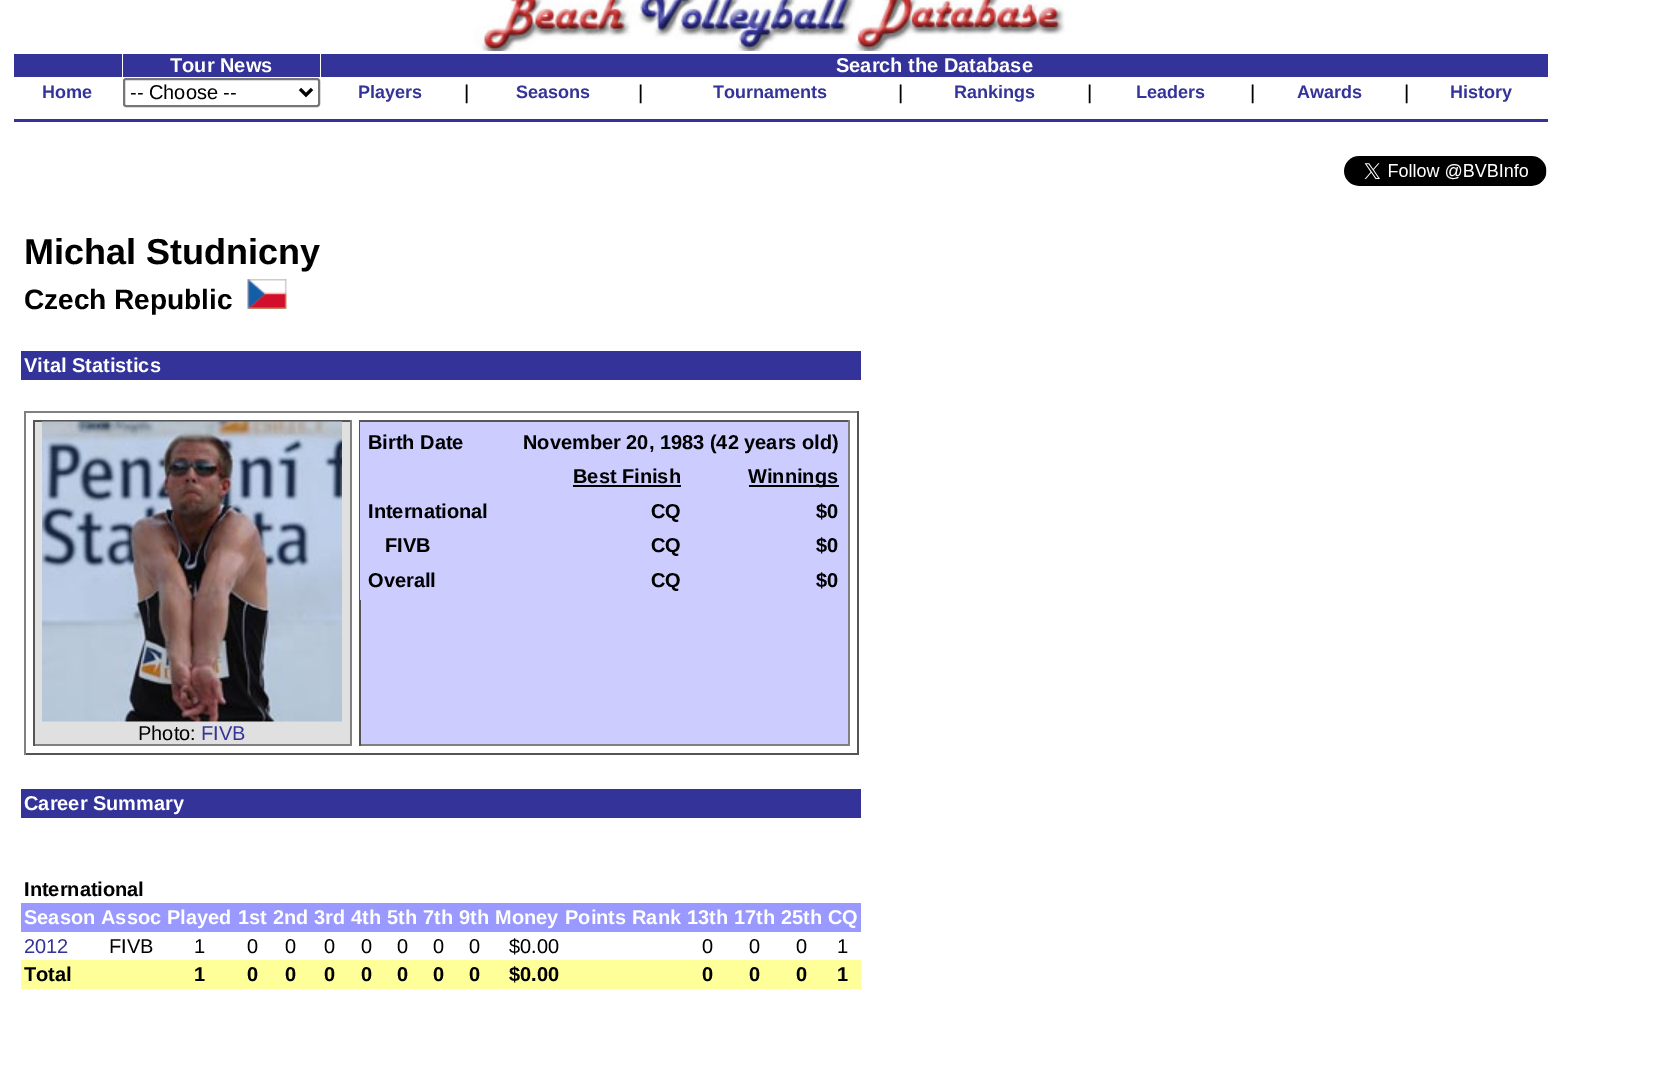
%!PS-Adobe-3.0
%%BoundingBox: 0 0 1658 1069
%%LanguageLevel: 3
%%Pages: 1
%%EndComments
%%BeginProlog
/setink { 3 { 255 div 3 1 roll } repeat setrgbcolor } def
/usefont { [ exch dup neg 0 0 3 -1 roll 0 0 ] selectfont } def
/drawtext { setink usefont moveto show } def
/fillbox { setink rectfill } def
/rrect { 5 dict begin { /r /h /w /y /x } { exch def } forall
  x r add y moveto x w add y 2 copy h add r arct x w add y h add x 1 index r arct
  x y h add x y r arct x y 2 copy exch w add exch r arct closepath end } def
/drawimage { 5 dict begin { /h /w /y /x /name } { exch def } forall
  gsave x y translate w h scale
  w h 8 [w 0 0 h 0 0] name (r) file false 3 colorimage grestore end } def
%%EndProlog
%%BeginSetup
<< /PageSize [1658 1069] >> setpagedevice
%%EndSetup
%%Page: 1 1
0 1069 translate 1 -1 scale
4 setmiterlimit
0 0 1658 1069 255 255 255 fillbox
(assets/img1.rgb) 474 0 591 51 drawimage
14 54 108 23 51 51 153 fillbox
123 54 197 23 51 51 153 fillbox
(Tour News) 170 72 /LiberationSans-Bold 20 255 255 255 drawtext
321 54 1227 23 51 51 153 fillbox
(Search the Database) 836 72 /LiberationSans-Bold 20 255 255 255 drawtext
(Home) 42 98 /LiberationSans-Bold 18 51 51 153 drawtext
118 118 118 setink
2 setlinewidth
124 79 195 27 2 rrect stroke
0 0 0 setink
3 setlinewidth
300 89 moveto 306 95 lineto 312 89 lineto stroke
(-- Choose --) 130 99 /LiberationSans-Regular 20 0 0 0 drawtext
(Players) 358 98 /LiberationSans-Bold 18 51 51 153 drawtext
(|) 464 99 /LiberationSans-Regular 20 0 0 0 drawtext
(Seasons) 516 98 /LiberationSans-Bold 18 51 51 153 drawtext
(|) 638 99 /LiberationSans-Regular 20 0 0 0 drawtext
(Tournaments) 713 98 /LiberationSans-Bold 18 51 51 153 drawtext
(|) 898 99 /LiberationSans-Regular 20 0 0 0 drawtext
(Rankings) 954 98 /LiberationSans-Bold 18 51 51 153 drawtext
(|) 1087 99 /LiberationSans-Regular 20 0 0 0 drawtext
(Leaders) 1136 98 /LiberationSans-Bold 18 51 51 153 drawtext
(|) 1250 99 /LiberationSans-Regular 20 0 0 0 drawtext
(Awards) 1297 98 /LiberationSans-Bold 18 51 51 153 drawtext
(|) 1404 99 /LiberationSans-Regular 20 0 0 0 drawtext
(History) 1450 98 /LiberationSans-Bold 18 51 51 153 drawtext
14 119 1534 3 51 51 153 fillbox
(assets/img2.rgb) 1344 156 203 30 drawimage
(Michal Studnicny) 24 264 /LiberationSans-Bold 36 0 0 0 drawtext
(Czech Republic) 24 309 /LiberationSans-Bold 28 0 0 0 drawtext
(assets/img3.rgb) 247 279 40 30 drawimage
21 351 840 29 51 51 153 fillbox
(Vital Statistics) 24 372 /LiberationSans-Bold 20 255 255 255 drawtext
24 411 834 2 128 128 128 fillbox
857 411 2 344 85 85 85 fillbox
24 753 834 2 85 85 85 fillbox
24 411 2 344 128 128 128 fillbox
361 600 487 144 204 204 255 fillbox
359 420 490 2 85 85 85 fillbox
848 420 2 326 128 128 128 fillbox
359 744 490 2 128 128 128 fillbox
359 420 2 326 85 85 85 fillbox
360 422 488 178 204 204 255 fillbox
(Birth Date) 368 449 /LiberationSans-Bold 20 0 0 0 drawtext
(November 20, 1983 \(42 years old\)) 523 449 /LiberationSans-Bold 20 0 0 0 drawtext
(Best Finish) 573 483 /LiberationSans-Bold 20 0 0 0 drawtext
573 485 108 2 0 0 0 fillbox
749 485 90 2 0 0 0 fillbox
(Winnings) 748 483 /LiberationSans-Bold 20 0 0 0 drawtext
(International) 368 518 /LiberationSans-Bold 20 0 0 0 drawtext
(CQ) 651 518 /LiberationSans-Bold 20 0 0 0 drawtext
($0) 816 518 /LiberationSans-Bold 20 0 0 0 drawtext
(FIVB) 385 552 /LiberationSans-Bold 20 0 0 0 drawtext
(CQ) 651 552 /LiberationSans-Bold 20 0 0 0 drawtext
($0) 816 552 /LiberationSans-Bold 20 0 0 0 drawtext
(Overall) 368 587 /LiberationSans-Bold 20 0 0 0 drawtext
(CQ) 651 587 /LiberationSans-Bold 20 0 0 0 drawtext
($0) 816 587 /LiberationSans-Bold 20 0 0 0 drawtext
35 422 315 322 224 224 224 fillbox
33 420 318 2 85 85 85 fillbox
350 420 2 326 128 128 128 fillbox
33 744 318 2 128 128 128 fillbox
33 420 2 326 85 85 85 fillbox
(assets/img4.rgb) 42 421 300 301 drawimage
(Photo:) 138 740 /LiberationSans-Regular 20 0 0 0 drawtext
(FIVB) 201 740 /LiberationSans-Regular 20 51 51 153 drawtext
21 789 840 29 51 51 153 fillbox
(Career Summary) 24 810 /LiberationSans-Bold 20 255 255 255 drawtext
(International) 24 896 /LiberationSans-Bold 20 0 0 0 drawtext
21 903 840 29 153 153 255 fillbox
(Season) 24 924 /LiberationSans-Bold 20 255 255 255 drawtext
(Assoc) 101 924 /LiberationSans-Bold 20 255 255 255 drawtext
(Played) 167 924 /LiberationSans-Bold 20 255 255 255 drawtext
(1st) 238 924 /LiberationSans-Bold 20 255 255 255 drawtext
(2nd) 273 924 /LiberationSans-Bold 20 255 255 255 drawtext
(3rd) 314 924 /LiberationSans-Bold 20 255 255 255 drawtext
(4th) 351 924 /LiberationSans-Bold 20 255 255 255 drawtext
(5th) 387 924 /LiberationSans-Bold 20 255 255 255 drawtext
(7th) 423 924 /LiberationSans-Bold 20 255 255 255 drawtext
(9th) 459 924 /LiberationSans-Bold 20 255 255 255 drawtext
(Money) 495 924 /LiberationSans-Bold 20 255 255 255 drawtext
(Points) 565 924 /LiberationSans-Bold 20 255 255 255 drawtext
(Rank) 632 924 /LiberationSans-Bold 20 255 255 255 drawtext
(13th) 687 924 /LiberationSans-Bold 20 255 255 255 drawtext
(17th) 734 924 /LiberationSans-Bold 20 255 255 255 drawtext
(25th) 781 924 /LiberationSans-Bold 20 255 255 255 drawtext
(CQ) 828 924 /LiberationSans-Bold 20 255 255 255 drawtext
(2012) 24 953 /LiberationSans-Regular 20 51 51 153 drawtext
(FIVB) 109 953 /LiberationSans-Regular 20 0 0 0 drawtext
(1) 194 953 /LiberationSans-Regular 20 0 0 0 drawtext
(0) 247 953 /LiberationSans-Regular 20 0 0 0 drawtext
(0) 285 953 /LiberationSans-Regular 20 0 0 0 drawtext
(0) 324 953 /LiberationSans-Regular 20 0 0 0 drawtext
(0) 361 953 /LiberationSans-Regular 20 0 0 0 drawtext
(0) 397 953 /LiberationSans-Regular 20 0 0 0 drawtext
(0) 433 953 /LiberationSans-Regular 20 0 0 0 drawtext
(0) 469 953 /LiberationSans-Regular 20 0 0 0 drawtext
($0.00) 509 953 /LiberationSans-Regular 20 0 0 0 drawtext
(0) 702 953 /LiberationSans-Regular 20 0 0 0 drawtext
(0) 749 953 /LiberationSans-Regular 20 0 0 0 drawtext
(0) 796 953 /LiberationSans-Regular 20 0 0 0 drawtext
(1) 837 953 /LiberationSans-Regular 20 0 0 0 drawtext
21 960 840 29 255 255 153 fillbox
(Total) 24 981 /LiberationSans-Bold 20 0 0 0 drawtext
(1) 194 981 /LiberationSans-Bold 20 0 0 0 drawtext
(0) 247 981 /LiberationSans-Bold 20 0 0 0 drawtext
(0) 285 981 /LiberationSans-Bold 20 0 0 0 drawtext
(0) 324 981 /LiberationSans-Bold 20 0 0 0 drawtext
(0) 361 981 /LiberationSans-Bold 20 0 0 0 drawtext
(0) 397 981 /LiberationSans-Bold 20 0 0 0 drawtext
(0) 433 981 /LiberationSans-Bold 20 0 0 0 drawtext
(0) 469 981 /LiberationSans-Bold 20 0 0 0 drawtext
($0.00) 509 981 /LiberationSans-Bold 20 0 0 0 drawtext
(0) 702 981 /LiberationSans-Bold 20 0 0 0 drawtext
(0) 749 981 /LiberationSans-Bold 20 0 0 0 drawtext
(0) 796 981 /LiberationSans-Bold 20 0 0 0 drawtext
(1) 837 981 /LiberationSans-Bold 20 0 0 0 drawtext
showpage
%%EOF
